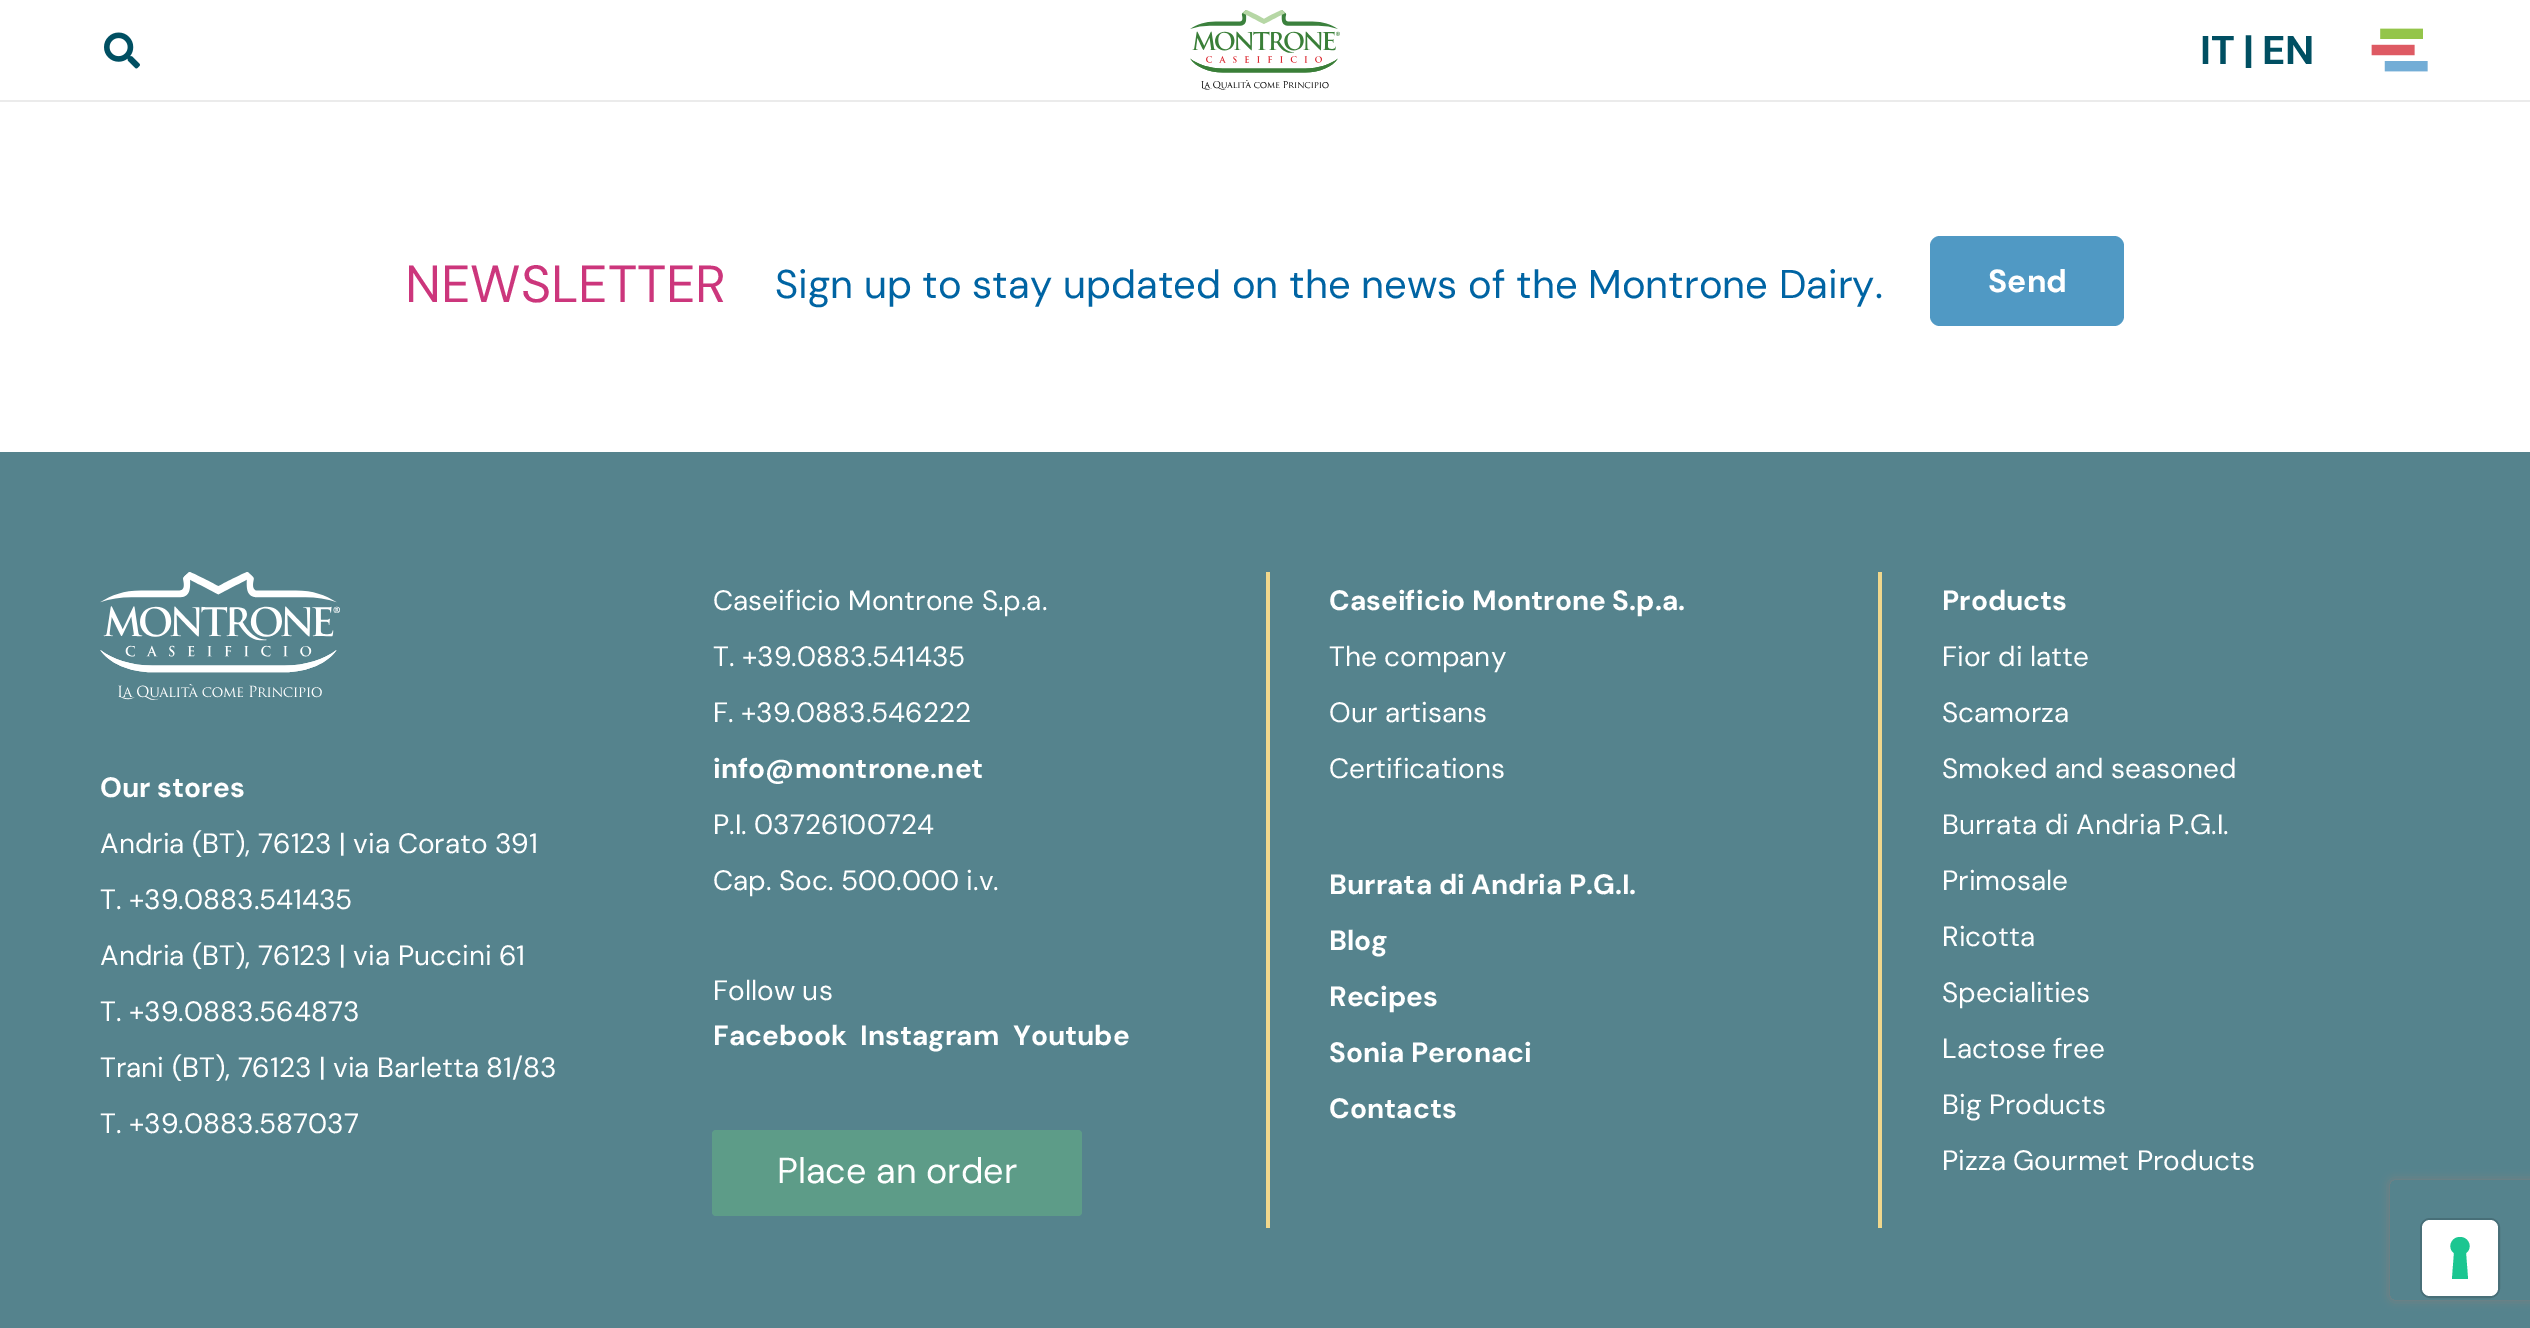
%!PS-Adobe-3.0
%%BoundingBox: 0 0 2530 1328
%%LanguageLevel: 3
%%Pages: 1
%%EndComments
%%BeginProlog
/setink { 3 { 255 div 3 1 roll } repeat setrgbcolor } def
/usefont { [ exch dup neg 0 0 3 -1 roll 0 0 ] selectfont } def
/drawtext { setink usefont moveto show } def
/fillbox { setink rectfill } def
/setalpha { dup .setfillconstantalpha .setstrokeconstantalpha } def
/rrect { 5 dict begin { /r /h /w /y /x } { exch def } forall
  x r add y moveto x w add y 2 copy h add r arct x w add y h add x 1 index r arct
  x y h add x y r arct x y 2 copy exch w add exch r arct closepath end } def
/softshadow { 12 dict begin { /a /b /q /h /w /y /x } { exch def } forall gsave /was 0 def
  9 -2 -9 { dup b mul 4 div /e exch def 1 sub .425 mul 2.718 exch exp 1 add a .99 .min exch div /now exch def
    1 1 now sub 1 was sub div sub setalpha /was now def
    w h .min e 2 mul add 0 gt { x e sub y e sub w e 2 mul add h e 2 mul add
      q e add b .6 mul add w h .min 2 div e add .min 0 .max rrect fill } if } for grestore end } def
/drawimage { 5 dict begin { /h /w /y /x /name } { exch def } forall
  gsave x y translate w h scale
  w h 8 [w 0 0 h 0 0] name (r) file false 3 colorimage grestore end } def
%%EndProlog
%%BeginSetup
<< /PageSize [2530 1328] /PageUsesTransparency true >> setpagedevice
%%EndSetup
%%Page: 1 1
0 .pushpdf14devicefilter
0 1328 translate 1 -1 scale
4 setmiterlimit
0 0 2530 1328 255 255 255 fillbox
0 100 2530 2 235 235 235 fillbox
(assets/img1.rgb) 104 32 36 37 drawimage
(assets/img2.rgb) 1190 10 150 80 drawimage
(IT) 2200 64 /DMSans-Bold 40 0 79 98 drawtext
(|) 2243 64 /DMSans-Bold 40 0 79 98 drawtext
(EN) 2262 64 /DMSans-Bold 40 0 79 98 drawtext
(assets/img3.rgb) 2371 28 57 44 drawimage
(NEWSLETTER) 405 302 /DMSans-Regular 52 204 54 124 drawtext
(Sign up to stay updated on the news of the Montrone Dairy.) 775 298 /DMSans-Regular 40 0 100 163 drawtext
80 153 196 setink
1930 236 194 90 10 rrect fill
(Send) 1988 292 /DMSans-Bold 32 255 255 255 drawtext
0 452 2530 876 85 131 141 fillbox
(assets/img4.rgb) 100 572 240 128 drawimage
(Our stores) 100 797 /DMSans-Bold 28 255 255 255 drawtext
(Andria \(BT\), 76123 | via Corato 391) 100 853 /DMSans-Regular 28 255 255 255 drawtext
(T. +39.0883.541435) 100 909 /DMSans-Regular 28 255 255 255 drawtext
(Andria \(BT\), 76123 | via Puccini 61) 100 965 /DMSans-Regular 28 255 255 255 drawtext
(T. +39.0883.564873) 100 1021 /DMSans-Regular 28 255 255 255 drawtext
(Trani \(BT\), 76123 | via Barletta 81/83) 100 1077 /DMSans-Regular 28 255 255 255 drawtext
(T. +39.0883.587037) 100 1133 /DMSans-Regular 28 255 255 255 drawtext
(Caseificio Montrone S.p.a.) 713 610 /DMSans-Regular 28 255 255 255 drawtext
(T. +39.0883.541435) 713 666 /DMSans-Regular 28 255 255 255 drawtext
(F. +39.0883.546222) 713 722 /DMSans-Regular 28 255 255 255 drawtext
(info@montrone.net) 713 778 /DMSans-Bold 28 255 255 255 drawtext
(P.I. 03726100724) 713 834 /DMSans-Regular 28 255 255 255 drawtext
(Cap. Soc. 500.000 i.v.) 713 890 /DMSans-Regular 28 255 255 255 drawtext
(Follow us) 713 1000 /DMSans-Regular 28 255 255 255 drawtext
(Facebook) 713 1045 /DMSans-Bold 28 255 255 255 drawtext
(Instagram) 860 1045 /DMSans-Bold 28 255 255 255 drawtext
(Youtube) 1013 1045 /DMSans-Bold 28 255 255 255 drawtext
93 156 136 setink
712 1130 370 86 4 rrect fill
(Place an order) 777 1183 /DMSans-Regular 36 255 255 255 drawtext
1266 572 4 656 241 215 140 fillbox
(Caseificio Montrone S.p.a.) 1329 610 /DMSans-Bold 28 255 255 255 drawtext
(The company) 1329 666 /DMSans-Regular 28 255 255 255 drawtext
(Our artisans) 1329 722 /DMSans-Regular 28 255 255 255 drawtext
(Certifications) 1329 778 /DMSans-Regular 28 255 255 255 drawtext
(Burrata di Andria P.G.I.) 1329 894 /DMSans-Bold 28 255 255 255 drawtext
(Blog) 1329 950 /DMSans-Bold 28 255 255 255 drawtext
(Recipes) 1329 1006 /DMSans-Bold 28 255 255 255 drawtext
(Sonia Peronaci) 1329 1062 /DMSans-Bold 28 255 255 255 drawtext
(Contacts) 1329 1118 /DMSans-Bold 28 255 255 255 drawtext
1878 572 4 656 241 215 140 fillbox
(Products) 1942 610 /DMSans-Bold 28 255 255 255 drawtext
(Fior di latte) 1942 666 /DMSans-Regular 28 255 255 255 drawtext
(Scamorza) 1942 722 /DMSans-Regular 28 255 255 255 drawtext
(Smoked and seasoned) 1942 778 /DMSans-Regular 28 255 255 255 drawtext
(Burrata di Andria P.G.I.) 1942 834 /DMSans-Regular 28 255 255 255 drawtext
(Primosale) 1942 890 /DMSans-Regular 28 255 255 255 drawtext
(Ricotta) 1942 946 /DMSans-Regular 28 255 255 255 drawtext
(Specialities) 1942 1002 /DMSans-Regular 28 255 255 255 drawtext
(Lactose free) 1942 1058 /DMSans-Regular 28 255 255 255 drawtext
(Big Products) 1942 1114 /DMSans-Regular 28 255 255 255 drawtext
(Pizza Gourmet Products) 1942 1170 /DMSans-Regular 28 255 255 255 drawtext
gsave
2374 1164 moveto 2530 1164 lineto 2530 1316 lineto 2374 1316 lineto closepath 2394 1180 moveto 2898 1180 lineto 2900 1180 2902 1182 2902 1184 curveto 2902 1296 lineto 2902 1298 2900 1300 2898 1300 curveto 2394 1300 lineto 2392 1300 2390 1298 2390 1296 curveto 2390 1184 lineto 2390 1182 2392 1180 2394 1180 curveto closepath eoclip newpath
128 128 128 setink
2390 1180 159 120 4 5 1 softshadow
grestore
72 111 120 setink
2 setlinewidth
2421 1219 78 78 9 rrect stroke
255 255 255 setink
2422 1220 76 76 8 rrect fill
28 198 145 setink
2460 1237 moveto 2469 1237 2473 1248 2466 1253 curveto 2468 1279 lineto 2452 1279 lineto 2454 1253 lineto 2447 1248 2451 1237 2460 1237 curveto closepath eofill
.poppdf14devicefilter showpage
%%EOF
